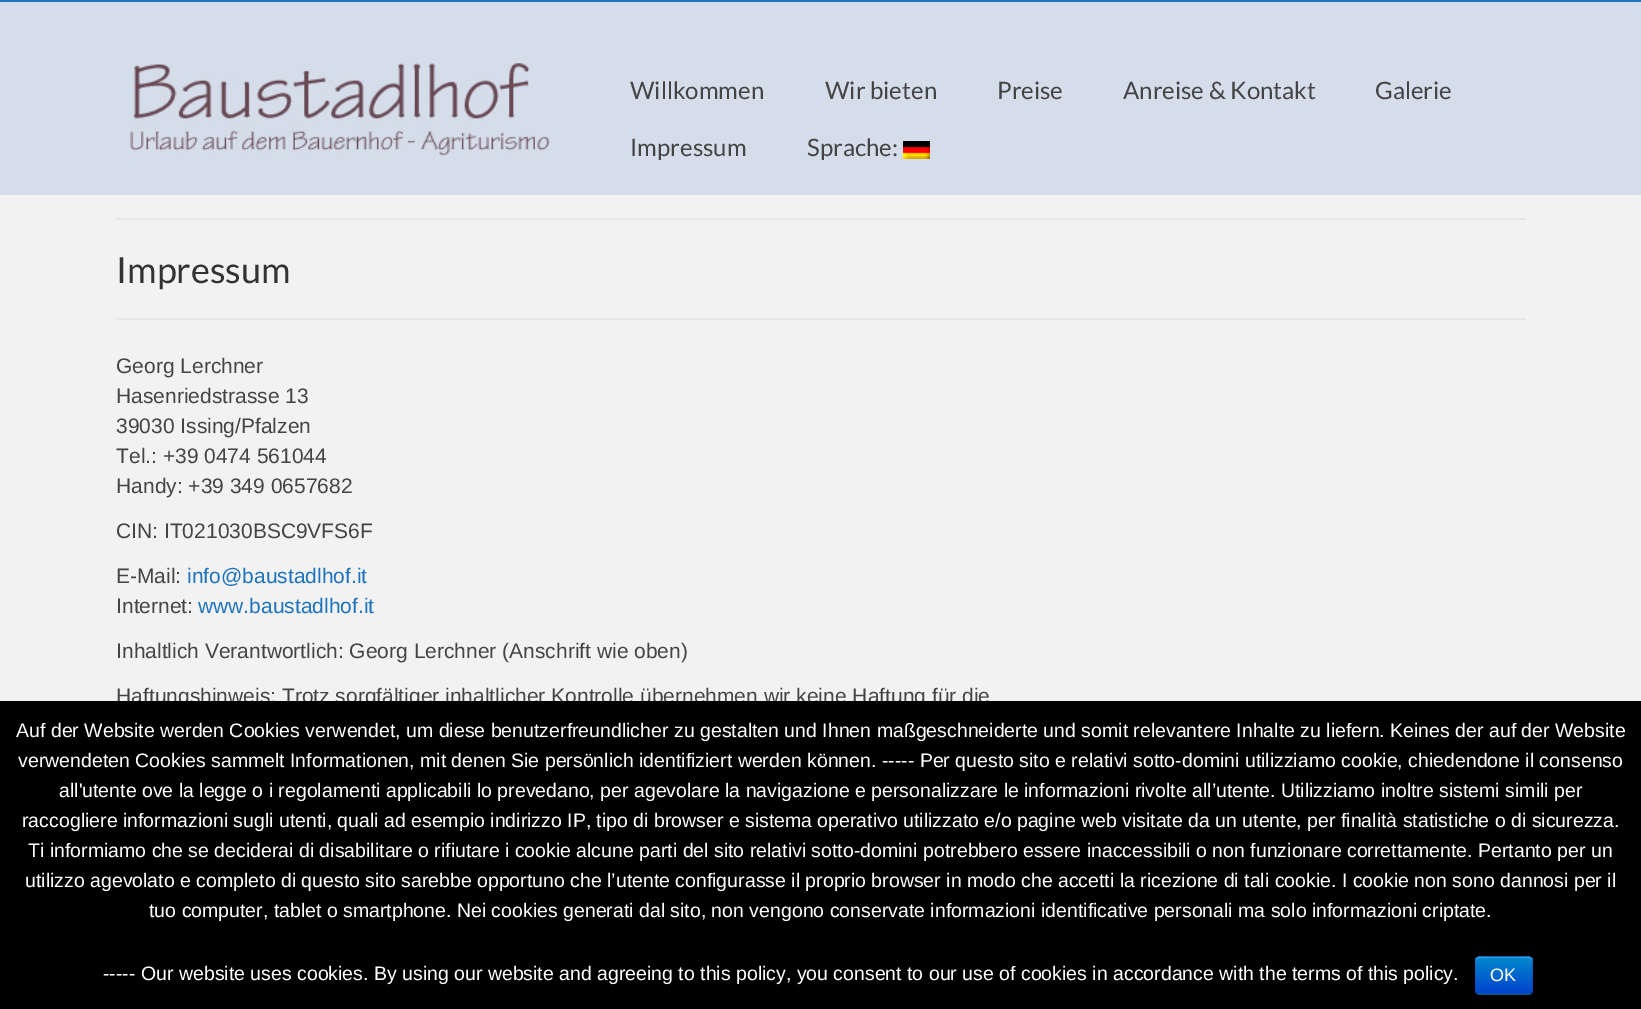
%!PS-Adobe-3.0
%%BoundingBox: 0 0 1641 1009
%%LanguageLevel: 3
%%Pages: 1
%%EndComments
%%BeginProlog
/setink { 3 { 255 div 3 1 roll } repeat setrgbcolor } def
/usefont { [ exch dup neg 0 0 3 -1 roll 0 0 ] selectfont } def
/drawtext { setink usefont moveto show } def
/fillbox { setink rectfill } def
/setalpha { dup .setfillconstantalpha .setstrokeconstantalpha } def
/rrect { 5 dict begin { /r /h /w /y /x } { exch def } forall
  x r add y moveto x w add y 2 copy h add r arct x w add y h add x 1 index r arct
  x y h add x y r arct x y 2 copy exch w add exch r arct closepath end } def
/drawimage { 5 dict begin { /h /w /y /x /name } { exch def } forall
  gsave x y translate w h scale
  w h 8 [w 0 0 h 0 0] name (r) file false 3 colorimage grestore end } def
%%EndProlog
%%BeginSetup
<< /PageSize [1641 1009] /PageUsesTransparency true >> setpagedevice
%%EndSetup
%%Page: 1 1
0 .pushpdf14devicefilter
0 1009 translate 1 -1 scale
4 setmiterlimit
0 0 1641 1009 213 221 234 fillbox
0 0 1641 2 30 115 190 fillbox
(assets/img1.rgb) 130 63 420 93 drawimage
(Willkommen) 630 99 /Lato-Regular 24 68 68 68 drawtext
(Wir bieten) 825 99 /Lato-Regular 24 68 68 68 drawtext
(Preise) 997 99 /Lato-Regular 24 68 68 68 drawtext
(Anreise & Kontakt) 1123 99 /Lato-Regular 24 68 68 68 drawtext
(Galerie) 1375 99 /Lato-Regular 24 68 68 68 drawtext
(Impressum) 630 156 /Lato-Regular 24 68 68 68 drawtext
(Sprache:) 807 156 /Lato-Regular 24 68 68 68 drawtext
(assets/img2.rgb) 903 141 27 18 drawimage
0 195 1641 506 242 242 242 fillbox
116 218 1410 2 230 230 230 fillbox
116 318 1410 2 230 230 230 fillbox
(Impressum) 116 283 /Lato-Regular 36 51 51 51 drawtext
(Georg Lerchner) 116 373 /LiberationSans-Regular 21 68 68 68 drawtext
(Hasenriedstrasse 13) 116 403 /LiberationSans-Regular 21 68 68 68 drawtext
(39030 Issing/Pfalzen) 116 433 /LiberationSans-Regular 21 68 68 68 drawtext
(Tel.: +39 0474 561044) 116 463 /LiberationSans-Regular 21 68 68 68 drawtext
(Handy: +39 349 0657682) 116 493 /LiberationSans-Regular 21 68 68 68 drawtext
(CIN: IT021030BSC9VFS6F) 116 538 /LiberationSans-Regular 21 68 68 68 drawtext
(E-Mail:) 116 583 /LiberationSans-Regular 21 68 68 68 drawtext
(info@baustadlhof.it) 187 583 /LiberationSans-Regular 21 30 115 190 drawtext
(Internet:) 116 613 /LiberationSans-Regular 21 68 68 68 drawtext
(www.baustadlhof.it) 198 613 /LiberationSans-Regular 21 30 115 190 drawtext
(Inhaltlich Verantwortlich: Georg Lerchner \(Anschrift wie oben\)) 116 658 /LiberationSans-Regular 21 68 68 68 drawtext
(Haftungshinweis: Trotz sorgfältiger inhaltlicher Kontrolle übernehmen wir keine Haftung für die) 116 703 /LiberationSans-Regular 21 68 68 68 drawtext
0 701 1641 308 0 0 0 fillbox
(Auf der Website werden Cookies verwendet, um diese benutzerfreundlicher zu gestalten und Ihnen maßgeschneiderte und somit relevantere Inhalte zu liefern. Keines der auf der Website) 16 737 /LiberationSans-Regular 19.5 255 255 255 drawtext
(verwendeten Cookies sammelt Informationen, mit denen Sie persönlich identifiziert werden können. ----- Per questo sito e relativi sotto-domini utilizziamo cookie, chiedendone il consenso) 18 767 /LiberationSans-Regular 19.5 255 255 255 drawtext
(all'utente ove la legge o i regolamenti applicabili lo prevedano, per agevolare la navigazione e personalizzare le informazioni rivolte all’utente. Utilizziamo inoltre sistemi simili per) 59 797 /LiberationSans-Regular 19.5 255 255 255 drawtext
(raccogliere informazioni sugli utenti, quali ad esempio indirizzo IP, tipo di browser e sistema operativo utilizzato e/o pagine web visitate da un utente, per finalità statistiche o di sicurezza.) 22 827 /LiberationSans-Regular 19.5 255 255 255 drawtext
(Ti informiamo che se deciderai di disabilitare o rifiutare i cookie alcune parti del sito relativi sotto-domini potrebbero essere inaccessibili o non funzionare correttamente. Pertanto per un) 28 857 /LiberationSans-Regular 19.5 255 255 255 drawtext
(utilizzo agevolato e completo di questo sito sarebbe opportuno che l’utente configurasse il proprio browser in modo che accetti la ricezione di tali cookie. I cookie non sono dannosi per il) 25 887 /LiberationSans-Regular 19.5 255 255 255 drawtext
(tuo computer, tablet o smartphone. Nei cookies generati dal sito, non vengono conservate informazioni identificative personali ma solo informazioni criptate.) 149 917 /LiberationSans-Regular 19.5 255 255 255 drawtext
(----- Our website uses cookies. By using our website and agreeing to this policy, you consent to our use of cookies in accordance with the terms of this policy.) 103 980 /LiberationSans-Regular 19.5 255 255 255 drawtext
0 109 204 setink
1475 956 58 39 5 rrect fill
gsave
1475 956 58 39 5 rrect clip newpath
gsave 1475 957 moveto 1533 957 lineto 1533 993 lineto 1475 993 lineto closepath clip newpath
<< /ShadingType 2 /ColorSpace /DeviceRGB /Coords [1504 957 1504 993] /Extend [true true] /Function << /FunctionType 2 /Domain [0 1] /C0 [0 0.533 0.8] /C1 [0 0.267 0.8] /N 1 >> >> shfill grestore
grestore
0.2 setalpha
255 255 255 setink
1479 958 moveto 1528 958 lineto 1530 958 1532 960 1532 962 curveto 1532 955 1528 957 1521 957 curveto 1487 957 lineto 1480 957 1476 955 1476 962 curveto 1476 960 1477 958 1479 958 curveto closepath fill
0.25 setalpha
0 0 0 setink
1.5 setlinewidth
1531 992.5 moveto 1530.5 993.5 1529.5 994 1528.5 994 curveto 1479 994 lineto 1478 994 1477 993.5 1476.5 992.5 curveto stroke
0.1 setalpha
1476.5 992.5 moveto 1475.5 992 1475 991 1475 990 curveto 1475 960 lineto 1475 959 1475.5 958 1476.5 957.5 curveto 1477 956.5 1478 956 1479 956 curveto 1528.5 956 lineto 1529.5 956 1530.5 956.5 1531 957.5 curveto 1532 958 1532 959 1532 960 curveto 1532 990 lineto 1532 991 1532 992 1531 992.5 curveto stroke
1 setalpha
(OK) 1490 981 /LiberationSans-Regular 18 255 255 255 drawtext
.poppdf14devicefilter showpage
%%EOF
